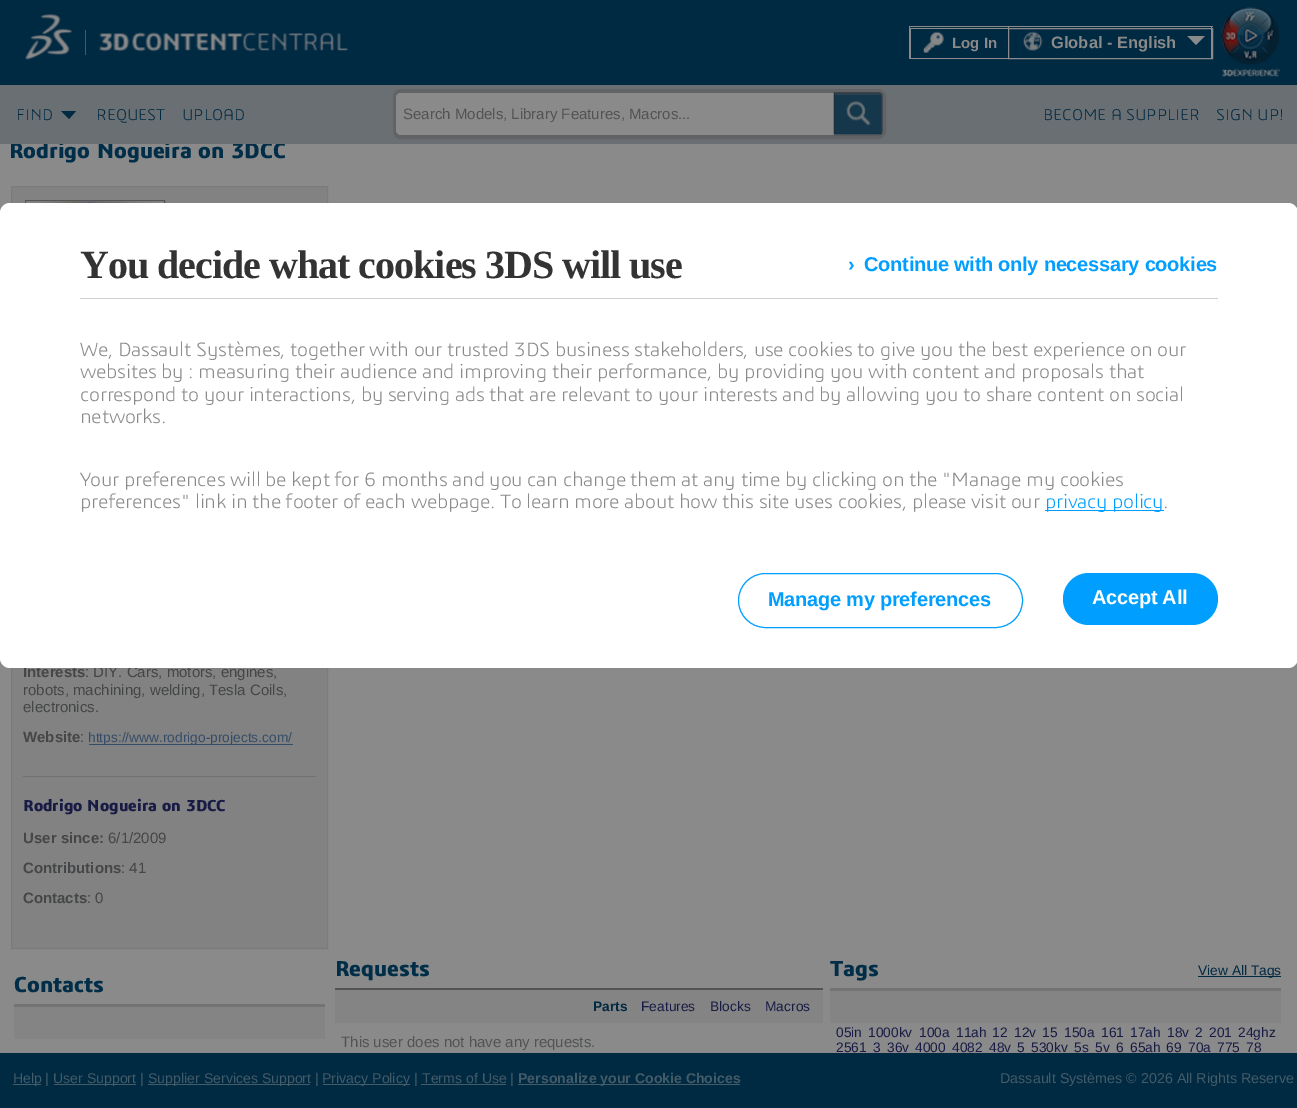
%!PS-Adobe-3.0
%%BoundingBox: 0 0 1297 1108
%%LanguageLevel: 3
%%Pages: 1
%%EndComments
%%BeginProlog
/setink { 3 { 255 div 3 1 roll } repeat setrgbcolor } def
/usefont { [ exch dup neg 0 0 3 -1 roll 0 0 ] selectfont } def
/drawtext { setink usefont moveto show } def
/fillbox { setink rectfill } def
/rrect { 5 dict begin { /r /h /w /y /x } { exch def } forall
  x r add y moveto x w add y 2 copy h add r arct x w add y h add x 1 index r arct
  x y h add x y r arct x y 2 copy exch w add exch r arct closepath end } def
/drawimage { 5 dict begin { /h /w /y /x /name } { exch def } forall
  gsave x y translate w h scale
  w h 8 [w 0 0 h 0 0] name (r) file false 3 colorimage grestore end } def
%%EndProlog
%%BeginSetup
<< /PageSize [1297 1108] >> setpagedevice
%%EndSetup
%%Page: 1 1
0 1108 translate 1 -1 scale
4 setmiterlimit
0 0 1297 1108 138 138 138 fillbox
0 0 1297 85 0 41 66 fillbox
(assets/img1.rgb) 25 14 48 46 drawimage
85 30 1 25 69 89 102 fillbox
(assets/img2.rgb) 99 32 250 20 drawimage
1008 26 205 1 138 138 138 fillbox
1008 26 1 2 138 138 138 fillbox
909 26 100 1 138 138 138 fillbox
909 58 100 1 138 138 138 fillbox
909 26 1 33 138 138 138 fillbox
910 28 98 1 138 138 138 fillbox
910 28 1 31 138 138 138 fillbox
(assets/img3.rgb) 923 31 21 22 drawimage
(Log In) 952 48 /LiberationSans-Bold 15 138 138 138 drawtext
1211 26 1 33 138 138 138 fillbox
1008.5 28.5 204 30 rectstroke
(assets/img4.rgb) 1023 31 20 21 drawimage
(Global - English) 1051 48 /LiberationSans-Bold 16.5 138 138 138 drawtext
1187.5 36 moveto 1205 36 lineto 1196 45 lineto closepath fill
(assets/img5.rgb) 1221 7 60 70 drawimage
(Rodrigo Nogueira on 3DCC) 9 158 /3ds-Bold 22.5 0 46 72 drawtext
0 85 1297 59 105 111 115 fillbox
(FIND) 16 120 /3ds-Light 16.25 0 41 66 drawtext
61 111 moveto 76 111 lineto 69 119 lineto closepath fill
(REQUEST) 96 120 /3ds-Light 16.25 0 41 66 drawtext
(UPLOAD) 182 120 /3ds-Light 16.25 0 41 66 drawtext
138 138 138 setink
395 91 489 46 6 rrect gsave fill grestore
98 99 100 setink
4 setlinewidth
stroke
138 138 138 setink
396 93 438 42 5 rrect fill
396 93 444 40 5 rrect fill
(Search Models, Library Features, Macros...) 403 119 /LiberationSans-Regular 15 82 83 84 drawtext
(assets/img6.rgb) 833 92 50 44 drawimage
(BECOME A SUPPLIER) 1043 120 /3ds-Light 16.25 0 41 66 drawtext
(SIGN UP!) 1216 120 /3ds-Light 16.25 0 41 66 drawtext
130 130 130 setink
11.5 186.5 moveto 327.5 186.5 lineto 327.5 948.5 lineto 11.5 948.5 lineto closepath gsave fill grestore
123 123 123 setink
1 setlinewidth
stroke
85 85 85 setink
25.5 200.5 139 83 rectstroke
(assets/img7.rgb) 26 201 138 2 drawimage
(Interests) 23 677 /LiberationSans-Bold 15 69 70 71 drawtext
(: DIY. Cars, motors, engines,) 85 677 /LiberationSans-Regular 15 69 70 71 drawtext
(robots, machining, welding, Tesla Coils,) 23 695 /LiberationSans-Regular 15 69 70 71 drawtext
(electronics.) 23 712 /LiberationSans-Regular 15 69 70 71 drawtext
(Website) 23 742 /LiberationSans-Bold 15 69 70 71 drawtext
(:) 80 742 /LiberationSans-Regular 15 69 70 71 drawtext
89 744 204 1 53 76 104 fillbox
(https://www.rodrigo-projects.com/) 88 742 /LiberationSans-Regular 13.75 53 76 104 drawtext
23 776 293 1 111 113 116 fillbox
(Rodrigo Nogueira on 3DCC) 23 811 /3ds-Bold 16.5 24 28 69 drawtext
(User since:) 23 843 /LiberationSans-Bold 15 69 70 71 drawtext
(6/1/2009) 108 843 /LiberationSans-Regular 15 69 70 71 drawtext
(Contributions) 23 873 /LiberationSans-Bold 15 69 70 71 drawtext
(: 41) 121 873 /LiberationSans-Regular 15 69 70 71 drawtext
(Contacts) 23 903 /LiberationSans-Bold 15 69 70 71 drawtext
(: 0) 87 903 /LiberationSans-Regular 15 69 70 71 drawtext
(Contacts) 14 992 /3ds-Bold 22.5 0 46 72 drawtext
14 1007 311 32 132 132 132 fillbox
14 1004 311 3 113 115 116 fillbox
(Requests) 335 976 /3ds-Bold 22.5 0 46 72 drawtext
335 988 488 2 82 83 84 fillbox
335 990 488 33 132 132 132 fillbox
(Parts) 593 1011 /LiberationSans-Bold 13.75 0 41 66 drawtext
(Features) 641 1011 /LiberationSans-Regular 13.75 24 28 69 drawtext
(Blocks) 710 1011 /LiberationSans-Regular 13.75 24 28 69 drawtext
(Macros) 765 1011 /LiberationSans-Regular 13.75 24 28 69 drawtext
(This user does not have any requests.) 341 1047 /LiberationSans-Regular 15 82 83 84 drawtext
(Tags) 830 976 /3ds-Bold 22.5 0 46 72 drawtext
1198 976 83 1 0 41 66 fillbox
(View All Tags) 1198 975 /LiberationSans-Regular 13.75 0 41 66 drawtext
830 991 451 32 132 132 132 fillbox
830 988 451 3 113 115 116 fillbox
(05in) 836 1037 /LiberationSans-Regular 13.75 24 28 69 drawtext
(1000kv) 868 1037 /LiberationSans-Regular 13.75 24 28 69 drawtext
(100a) 919 1037 /LiberationSans-Regular 13.75 24 28 69 drawtext
(11ah) 956 1037 /LiberationSans-Regular 13.75 24 28 69 drawtext
(12) 992 1037 /LiberationSans-Regular 13.75 24 28 69 drawtext
(12v) 1014 1037 /LiberationSans-Regular 13.75 24 28 69 drawtext
(15) 1042 1037 /LiberationSans-Regular 13.75 24 28 69 drawtext
(150a) 1064 1037 /LiberationSans-Regular 13.75 24 28 69 drawtext
(161) 1101 1037 /LiberationSans-Regular 13.75 24 28 69 drawtext
(17ah) 1130 1037 /LiberationSans-Regular 13.75 24 28 69 drawtext
(18v) 1167 1037 /LiberationSans-Regular 13.75 24 28 69 drawtext
(2) 1195 1037 /LiberationSans-Regular 13.75 24 28 69 drawtext
(201) 1209 1037 /LiberationSans-Regular 13.75 24 28 69 drawtext
(24ghz) 1238 1037 /LiberationSans-Regular 13.75 24 28 69 drawtext
(2561) 836 1052 /LiberationSans-Regular 13.75 24 28 69 drawtext
(3) 873 1052 /LiberationSans-Regular 13.75 24 28 69 drawtext
(36v) 887 1052 /LiberationSans-Regular 13.75 24 28 69 drawtext
(4000) 915 1052 /LiberationSans-Regular 13.75 24 28 69 drawtext
(4082) 952 1052 /LiberationSans-Regular 13.75 24 28 69 drawtext
(48v) 989 1052 /LiberationSans-Regular 13.75 24 28 69 drawtext
(5) 1017 1052 /LiberationSans-Regular 13.75 24 28 69 drawtext
(530kv) 1031 1052 /LiberationSans-Regular 13.75 24 28 69 drawtext
(5s) 1074 1052 /LiberationSans-Regular 13.75 24 28 69 drawtext
(5v) 1095 1052 /LiberationSans-Regular 13.75 24 28 69 drawtext
(6) 1116 1052 /LiberationSans-Regular 13.75 24 28 69 drawtext
(65ah) 1130 1052 /LiberationSans-Regular 13.75 24 28 69 drawtext
(69) 1166 1052 /LiberationSans-Regular 13.75 24 28 69 drawtext
(70a) 1188 1052 /LiberationSans-Regular 13.75 24 28 69 drawtext
(775) 1217 1052 /LiberationSans-Regular 13.75 24 28 69 drawtext
(78) 1246 1052 /LiberationSans-Regular 13.75 24 28 69 drawtext
0 1053 1297 55 0 41 66 fillbox
13 1084 28 1 68 91 104 fillbox
(Help) 13 1083 /LiberationSans-Regular 14.1 68 91 104 drawtext
(|) 45 1083 /LiberationSans-Regular 14.3 68 91 104 drawtext
54 1084 82 1 68 91 104 fillbox
(User Support) 53 1083 /LiberationSans-Regular 14.1 68 91 104 drawtext
(|) 140 1083 /LiberationSans-Regular 14.3 68 91 104 drawtext
148 1084 162 1 68 91 104 fillbox
(Supplier Services Support) 148 1083 /LiberationSans-Regular 14.1 68 91 104 drawtext
(|) 315 1083 /LiberationSans-Regular 14.3 68 91 104 drawtext
323 1084 87 1 68 91 104 fillbox
(Privacy Policy) 322 1083 /LiberationSans-Regular 14.1 68 91 104 drawtext
(|) 414 1083 /LiberationSans-Regular 14.3 68 91 104 drawtext
(Terms of Use) 422 1083 /LiberationSans-Regular 14.1 68 91 104 drawtext
421 1084 85 1 68 91 104 fillbox
(|) 510 1083 /LiberationSans-Regular 14.3 68 91 104 drawtext
518 1084 222 1 68 91 104 fillbox
(Personalize your Cookie Choices) 518 1083 /LiberationSans-Bold 14.1 68 91 104 drawtext
(Dassault Systèmes © 2026 All Rights Reserve) 1000 1083 /LiberationSans-Regular 14.3 68 91 104 drawtext
255 255 255 setink
10 203 moveto 1288 203 lineto 1293.5 203 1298 207.5 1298 213 curveto 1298 554 lineto 0 554 lineto 0 213 lineto 0 207.5 4.5 203 10 203 curveto closepath fill
80 298 1138 1 209 209 209 fillbox
/LiberationSerif-Bold 40 usefont
51 51 51 setink
80 278 moveto -1 0 (You decide what cookies 3DS will use) ashow
/LiberationSans-Bold 20 usefont
0 158 255 setink
848 271 moveto -0.25 0 (›) ashow
864 271 moveto -0.25 0 (Continue with only necessary cookies) ashow
/3ds-Light 20 usefont
138 138 138 setink
80 356 moveto -0.25 0 (We, Dassault Systèmes, together with our trusted 3DS business stakeholders, use cookies to give you the best experience on our) ashow
80 378 moveto -0.25 0 (websites by : measuring their audience and improving their performance, by providing you with content and proposals that) ashow
80 401 moveto -0.25 0 (correspond to your interactions, by serving ads that are relevant to your interests and by allowing you to share content on social) ashow
80 423 moveto -0.25 0 (networks.) ashow
80 486 moveto -0.25 0 (Your preferences will be kept for 6 months and you can change them at any time by clicking on the "Manage my cookies) ashow
80 508 moveto -0.25 0 (preferences" link in the footer of each webpage. To learn more about how this site uses cookies, please visit our) ashow
1045 510 119 1 0 158 255 fillbox
1045 508 moveto -0.25 0 (privacy policy) ashow
138 138 138 setink
1163 508 moveto -0.25 0 (.) ashow
255 255 255 setink
0 554 moveto 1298 554 lineto 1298 658 lineto 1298 663.5 1293.5 668 1288 668 curveto 10 668 lineto 4.5 668 0 663.5 0 658 curveto closepath fill
0 158 255 setink
738.5 573.5 284 54 27 rrect stroke
/LiberationSans-Bold 20 usefont
768 606 moveto -0.25 0 (Manage my preferences) ashow
1063 573 155 52 26 rrect fill
255 255 255 setink
1092 604 moveto -0.25 0 (Accept All) ashow
showpage
%%EOF
